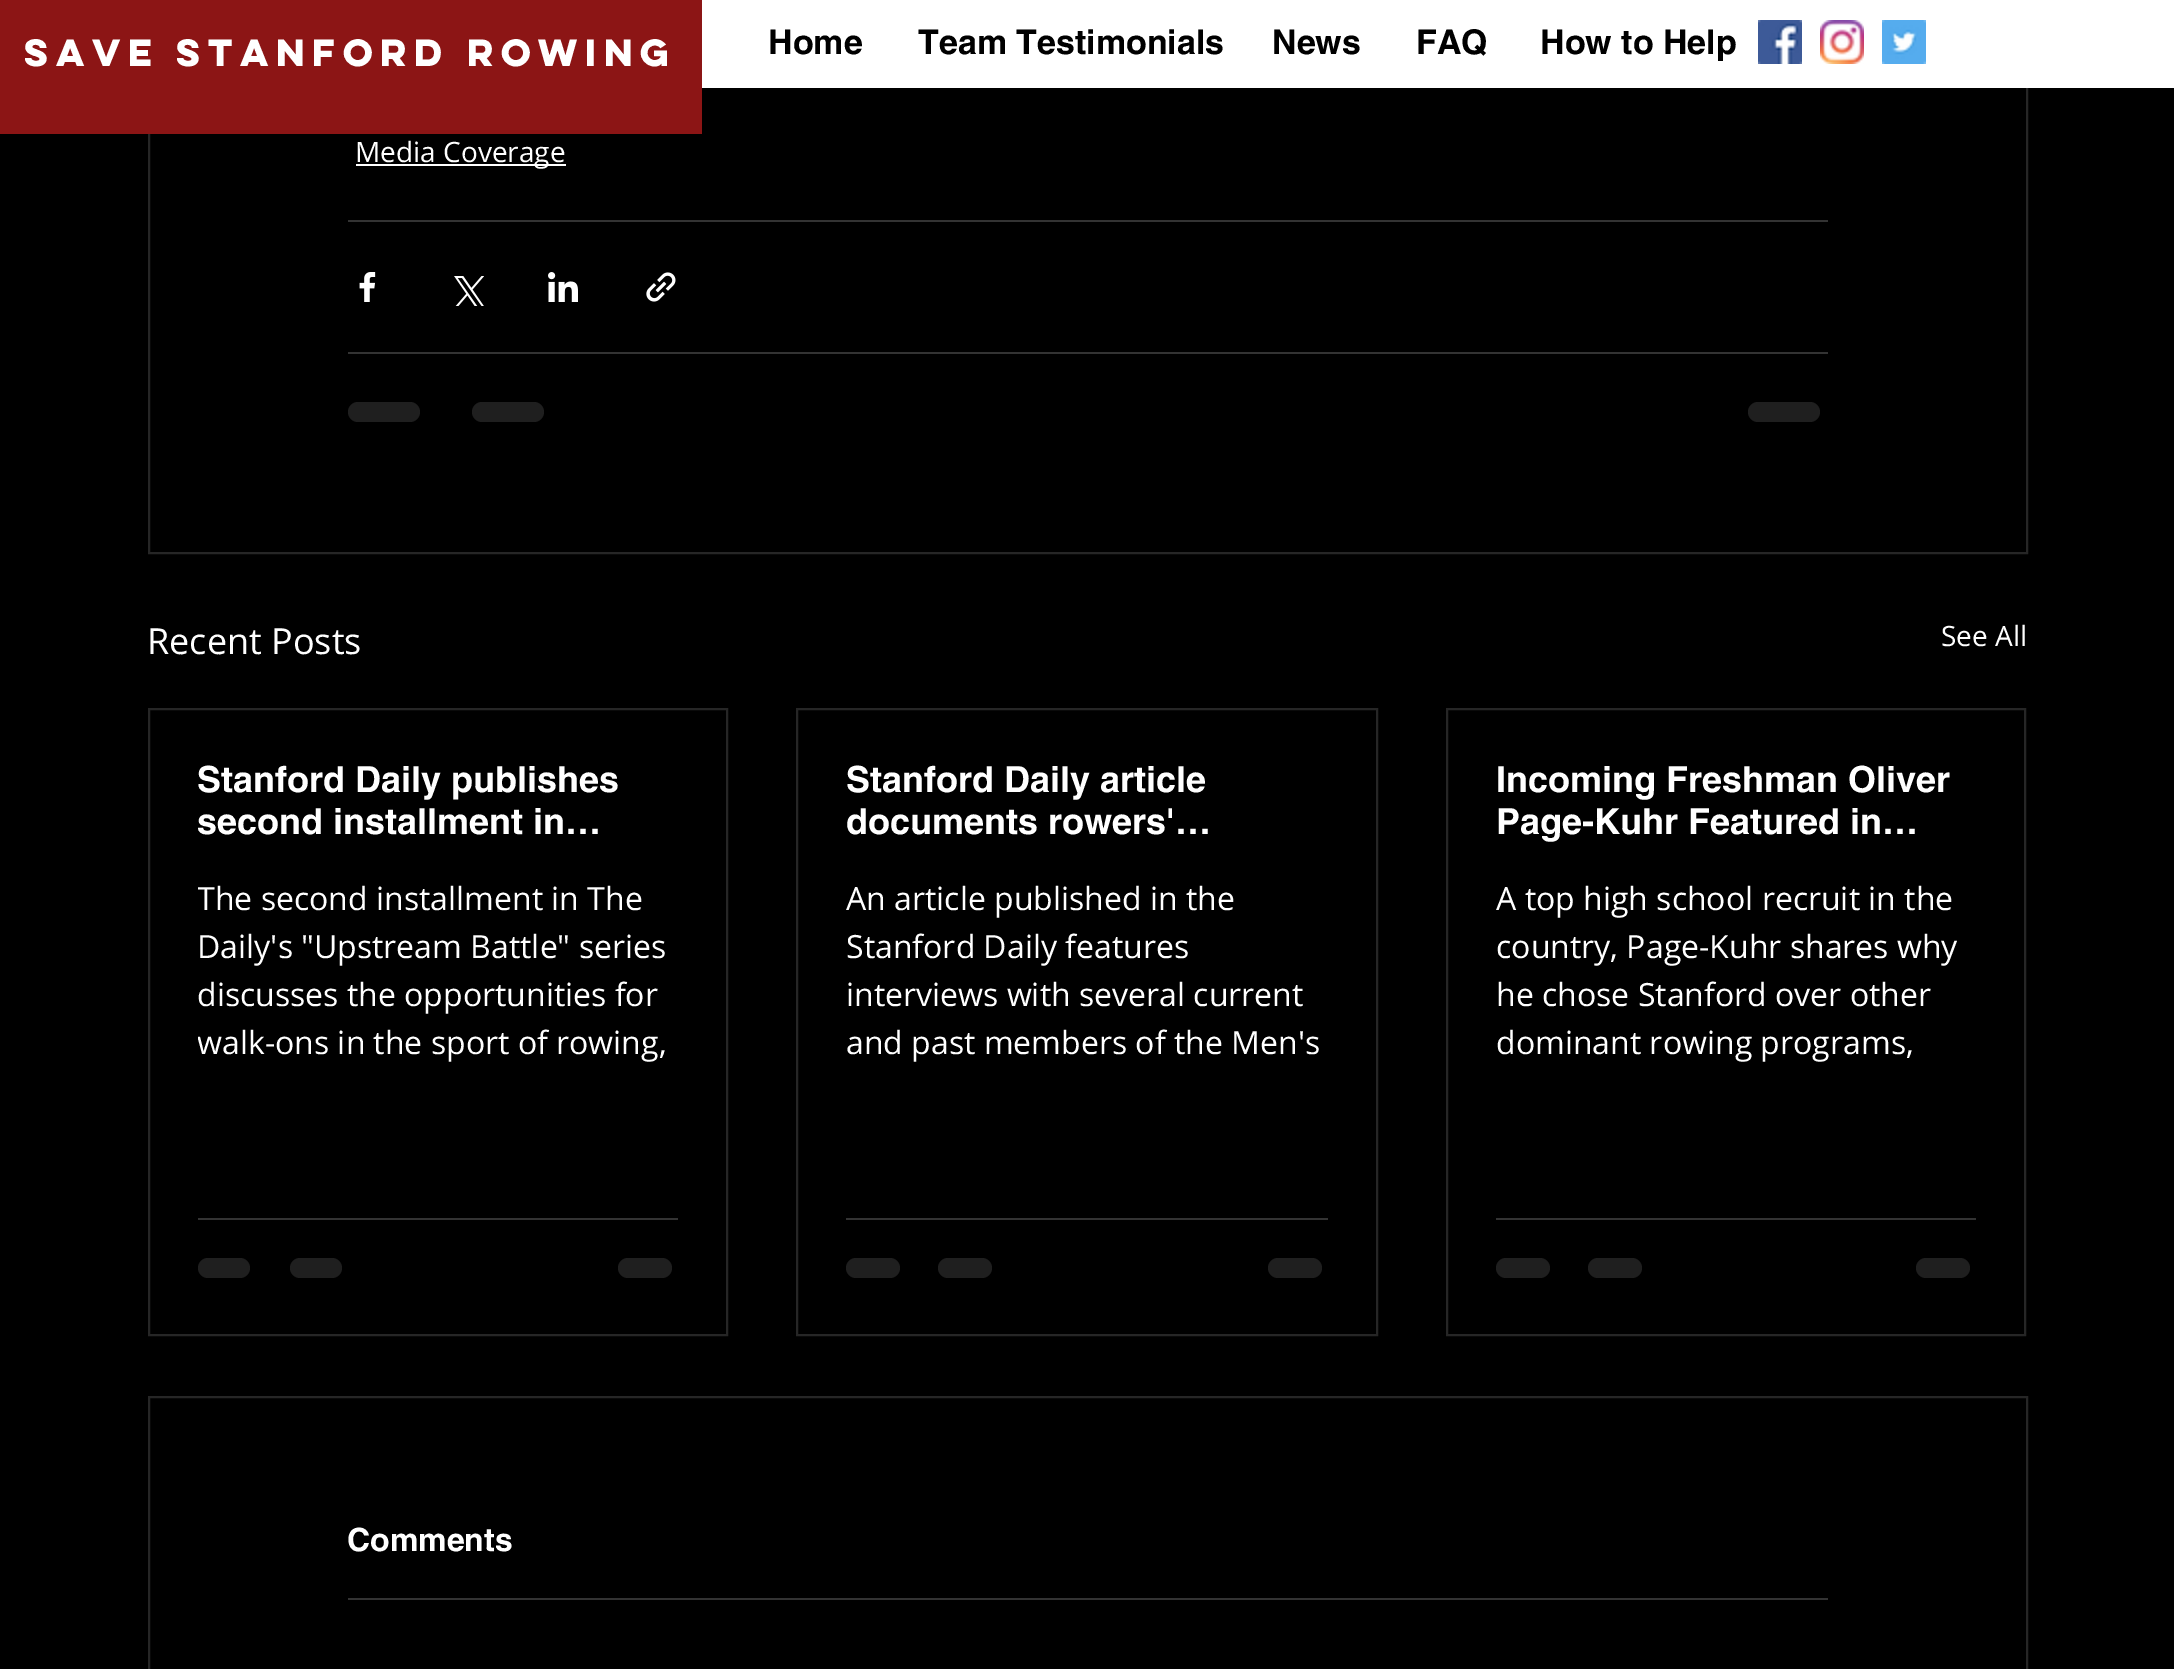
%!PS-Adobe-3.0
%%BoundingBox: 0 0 2174 1669
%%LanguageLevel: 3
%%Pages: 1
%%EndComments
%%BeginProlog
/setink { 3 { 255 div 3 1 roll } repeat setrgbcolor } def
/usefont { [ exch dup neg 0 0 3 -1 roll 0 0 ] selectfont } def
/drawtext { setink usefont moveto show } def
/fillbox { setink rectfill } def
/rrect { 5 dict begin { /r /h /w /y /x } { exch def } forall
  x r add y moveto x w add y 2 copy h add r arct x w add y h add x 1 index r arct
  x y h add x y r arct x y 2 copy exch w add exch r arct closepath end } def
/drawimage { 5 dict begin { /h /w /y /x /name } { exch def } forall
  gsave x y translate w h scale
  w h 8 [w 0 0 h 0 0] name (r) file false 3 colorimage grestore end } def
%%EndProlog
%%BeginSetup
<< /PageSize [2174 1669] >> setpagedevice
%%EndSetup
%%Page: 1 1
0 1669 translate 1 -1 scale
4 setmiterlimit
0 0 2174 1669 0 0 0 fillbox
38 38 38 setink
2 setlinewidth
149 -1 1878 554 rectstroke
0 0 702 134 140 21 21 fillbox
(SAVE STANFORD ROWING) 24 66 /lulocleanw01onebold-Bold 34 255 255 255 drawtext
702 0 1472 88 255 255 255 fillbox
(Home) 768 54 /helvetica-Bold 34 0 0 0 drawtext
(Team Testimonials) 918 54 /helvetica-Bold 34 0 0 0 drawtext
(News) 1272 54 /helvetica-Bold 34 0 0 0 drawtext
(FAQ) 1416 54 /helvetica-Bold 34 0 0 0 drawtext
(How to Help) 1540 54 /helvetica-Bold 34 0 0 0 drawtext
(assets/img1.rgb) 1758 20 44 44 drawimage
(assets/img2.rgb) 1820 20 44 44 drawimage
(assets/img3.rgb) 1882 20 44 44 drawimage
356 164 210 2 255 255 255 fillbox
(Media Coverage) 355 162 /OpenSans-Regular 28 255 255 255 drawtext
348 220 1480 2 51 51 51 fillbox
(assets/img4.rgb) 359 272 17 30 drawimage
(assets/img5.rgb) 454 276 30 30 drawimage
(assets/img6.rgb) 548 272 30 30 drawimage
(assets/img7.rgb) 646 272 30 30 drawimage
348 352 1480 2 51 51 51 fillbox
31 31 31 setink
348 402 72 20 10 rrect fill
472 402 72 20 10 rrect fill
1748 402 72 20 10 rrect fill
(Recent Posts) 147 654 /OpenSans-Regular 36 255 255 255 drawtext
(See All) 1941 646 /OpenSans-Regular 28 255 255 255 drawtext
38 38 38 setink
149 709 578 626 rectstroke
(Stanford Daily publishes) 197 792 /helvetica-Bold 36 255 255 255 drawtext
(second installment in…) 197 834 /helvetica-Bold 36 255 255 255 drawtext
gsave
198 874 480 192 rectclip
(The second installment in The) 197 910 /OpenSans-Regular 32 255 255 255 drawtext
grestore
(Daily's "Upstream Battle" series) 197 958 /OpenSans-Regular 32 255 255 255 drawtext
(discusses the opportunities for) 197 1006 /OpenSans-Regular 32 255 255 255 drawtext
gsave
198 874 480 192 rectclip
(walk-ons in the sport of rowing,) 197 1054 /OpenSans-Regular 32 255 255 255 drawtext
grestore
198 1218 480 2 51 51 51 fillbox
31 31 31 setink
198 1258 52 20 10 rrect fill
290 1258 52 20 10 rrect fill
618 1258 54 20 10 rrect fill
38 38 38 setink
797 709 580 626 rectstroke
(Stanford Daily article) 846 792 /helvetica-Bold 36 255 255 255 drawtext
(documents rowers'…) 846 834 /helvetica-Bold 36 255 255 255 drawtext
(An article published in the) 846 910 /OpenSans-Regular 32 255 255 255 drawtext
(Stanford Daily features) 846 958 /OpenSans-Regular 32 255 255 255 drawtext
(interviews with several current) 846 1006 /OpenSans-Regular 32 255 255 255 drawtext
(and past members of the Men's) 846 1054 /OpenSans-Regular 32 255 255 255 drawtext
846 1218 482 2 51 51 51 fillbox
31 31 31 setink
846 1258 54 20 10 rrect fill
938 1258 54 20 10 rrect fill
1268 1258 54 20 10 rrect fill
38 38 38 setink
1447 709 578 626 rectstroke
(Incoming Freshman Oliver) 1496 792 /helvetica-Bold 36 255 255 255 drawtext
(Page-Kuhr Featured in…) 1496 834 /helvetica-Bold 36 255 255 255 drawtext
(A top high school recruit in the) 1496 910 /OpenSans-Regular 32 255 255 255 drawtext
(country, Page-Kuhr shares why) 1496 958 /OpenSans-Regular 32 255 255 255 drawtext
(he chose Stanford over other) 1496 1006 /OpenSans-Regular 32 255 255 255 drawtext
(dominant rowing programs,) 1496 1054 /OpenSans-Regular 32 255 255 255 drawtext
1496 1218 480 2 51 51 51 fillbox
31 31 31 setink
1496 1258 54 20 10 rrect fill
1588 1258 54 20 10 rrect fill
1916 1258 54 20 10 rrect fill
38 38 38 setink
149 1397 1878 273 rectstroke
(Comments) 347 1551 /helvetica-Bold 32 255 255 255 drawtext
348 1598 1480 2 51 51 51 fillbox
showpage
%%EOF
